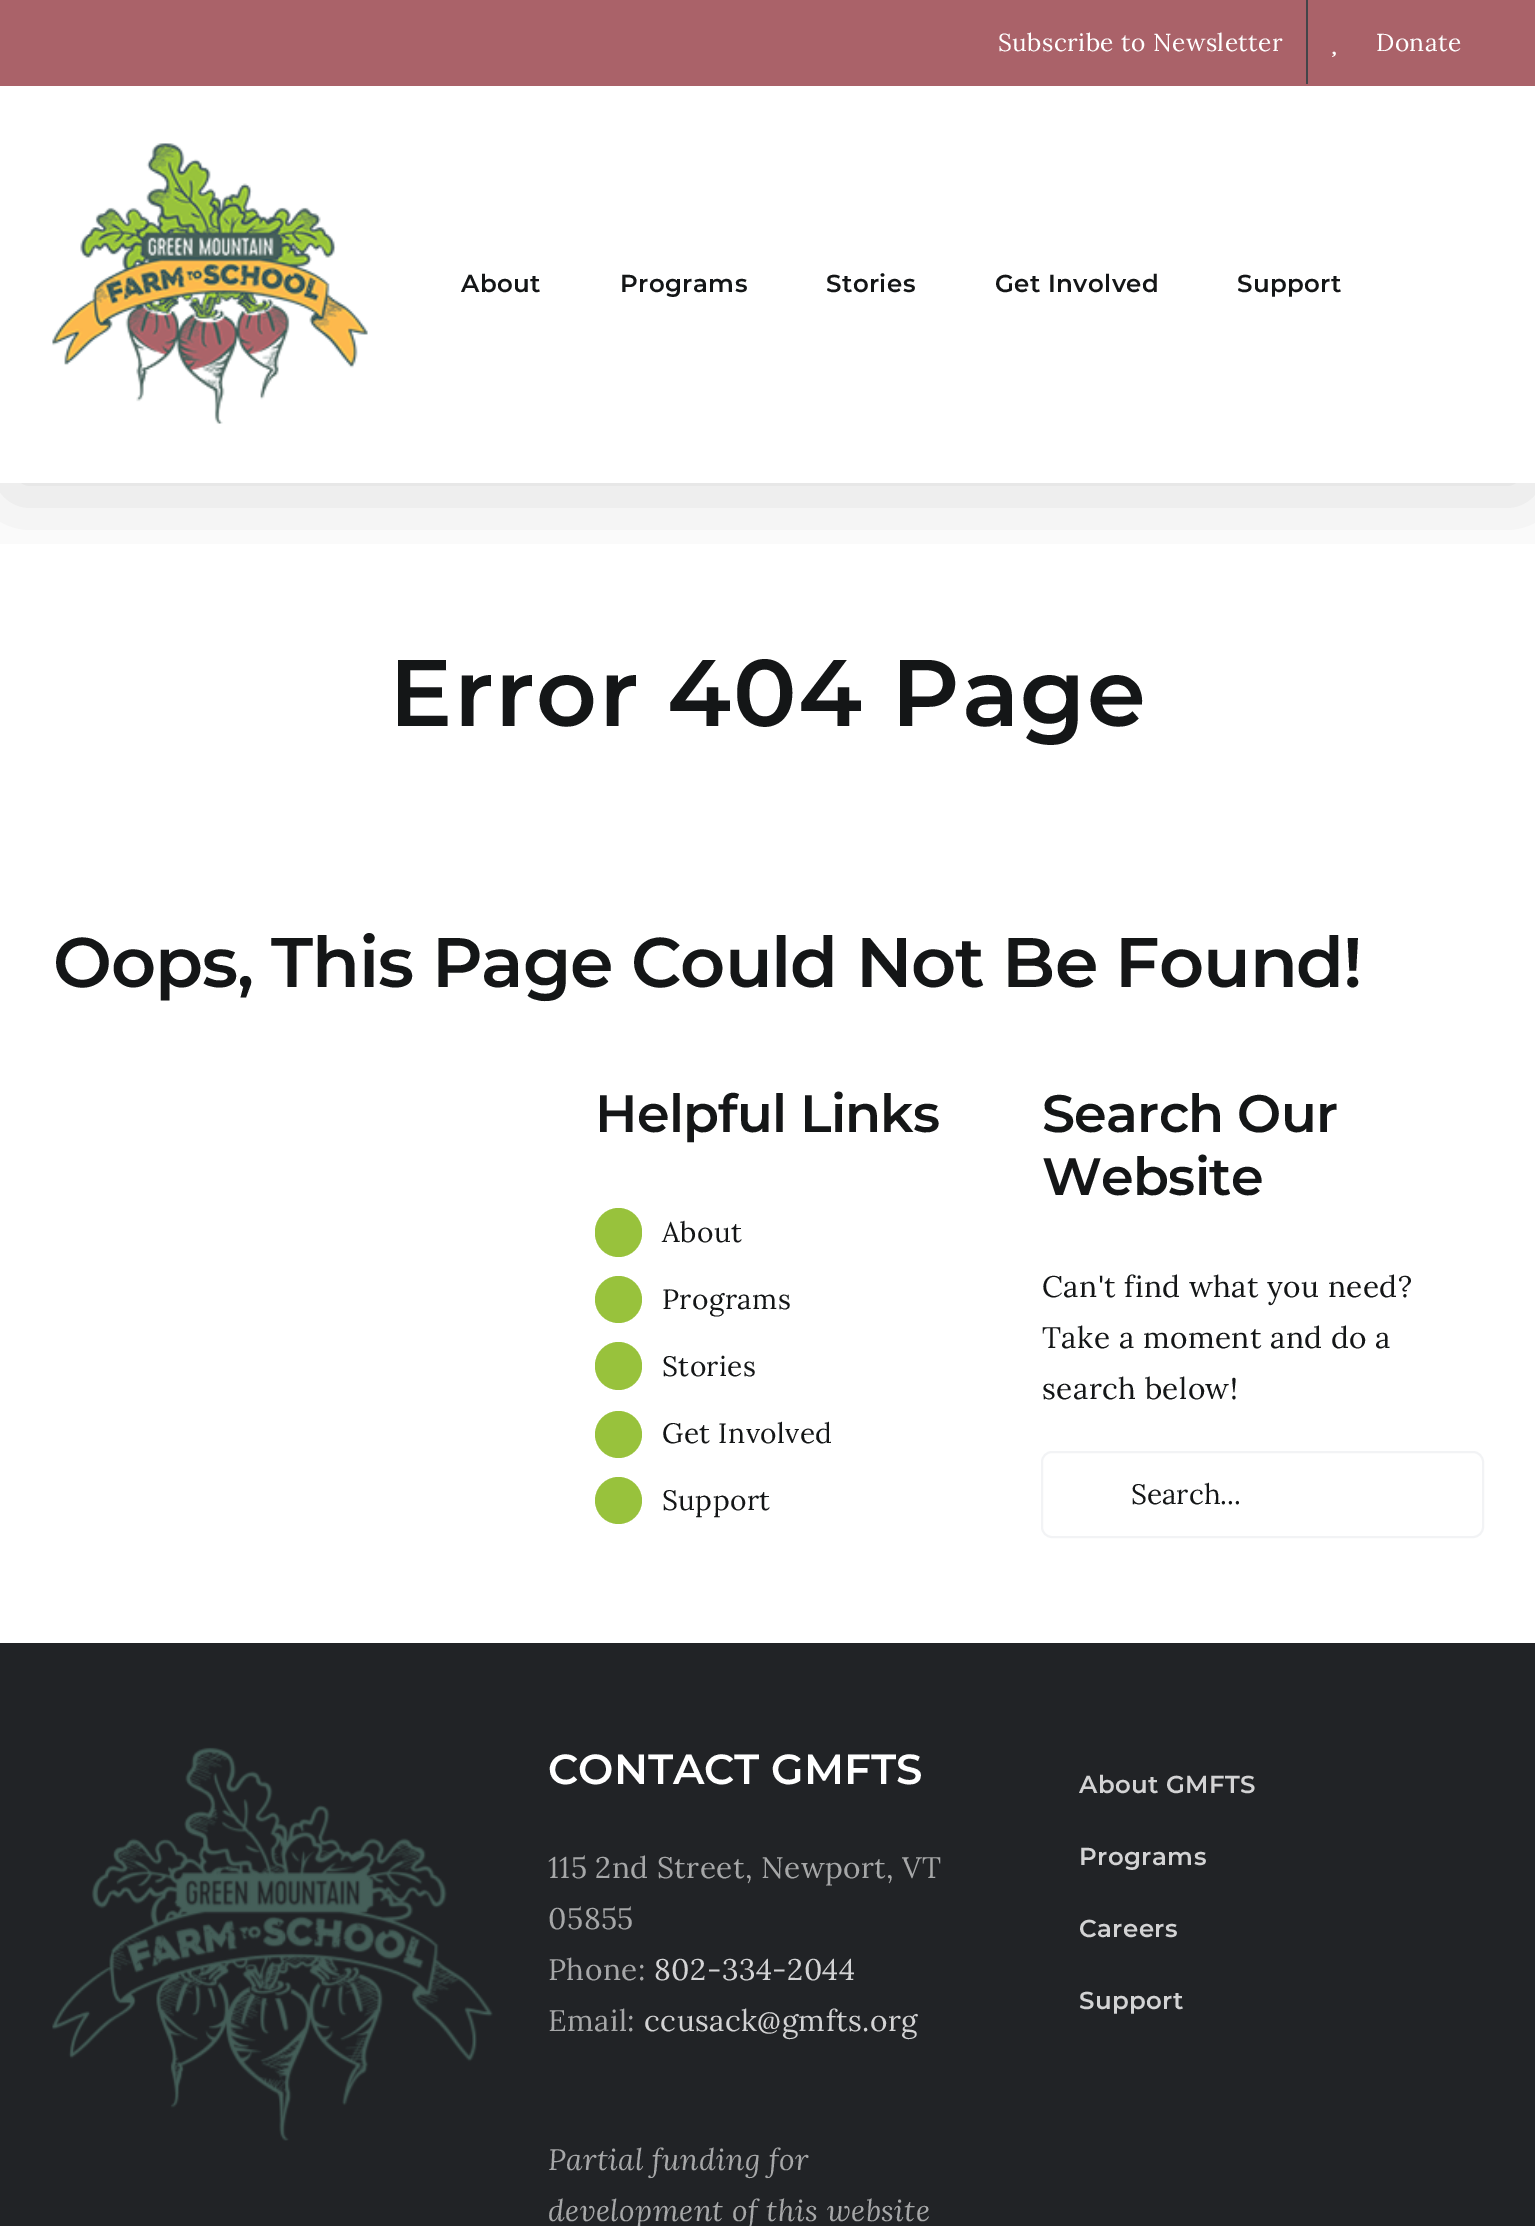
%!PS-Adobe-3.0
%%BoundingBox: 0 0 1535 2226
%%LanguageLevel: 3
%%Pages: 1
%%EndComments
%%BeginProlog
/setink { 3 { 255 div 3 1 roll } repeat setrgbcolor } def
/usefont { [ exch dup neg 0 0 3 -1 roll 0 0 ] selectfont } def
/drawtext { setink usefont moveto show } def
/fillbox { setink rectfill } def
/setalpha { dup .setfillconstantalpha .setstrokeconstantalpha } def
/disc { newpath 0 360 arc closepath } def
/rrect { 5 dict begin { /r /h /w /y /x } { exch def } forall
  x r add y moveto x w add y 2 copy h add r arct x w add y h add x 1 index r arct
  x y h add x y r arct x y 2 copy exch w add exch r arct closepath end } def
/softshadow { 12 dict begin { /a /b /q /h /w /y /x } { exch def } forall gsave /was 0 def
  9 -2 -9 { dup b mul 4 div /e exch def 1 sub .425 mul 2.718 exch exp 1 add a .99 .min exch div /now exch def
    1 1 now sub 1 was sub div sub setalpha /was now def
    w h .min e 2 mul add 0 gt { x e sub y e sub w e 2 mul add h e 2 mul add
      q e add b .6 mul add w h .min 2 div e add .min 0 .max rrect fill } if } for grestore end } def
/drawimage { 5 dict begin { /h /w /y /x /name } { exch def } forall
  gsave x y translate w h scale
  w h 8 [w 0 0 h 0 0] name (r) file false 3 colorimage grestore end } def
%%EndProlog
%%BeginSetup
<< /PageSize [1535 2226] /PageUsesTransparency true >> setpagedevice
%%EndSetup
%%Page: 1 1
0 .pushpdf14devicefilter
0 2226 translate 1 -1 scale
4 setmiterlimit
0 0 1535 2226 255 255 255 fillbox
gsave
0 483 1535 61 rectclip
0 0 0 setink
4 21 1529 476 0 44 0.14 softshadow
grestore
0 0 1535 86 170 98 105 fillbox
/Lora-Regular 24.5 usefont
255 255 255 setink
998 51 moveto 0.45 0 (Subscribe to Newsletter) ashow
1306 0 2 84 67 69 73 fillbox
255 255 255 setink
1376 51 moveto 0.45 0 (Donate) ashow
(assets/img1.rgb) 1332 51 4 6 drawimage
(assets/img2.rgb) 52 143 316 281 drawimage
/Montserrat-Thin 24.5 usefont
20 22 23 setink
461 292 moveto 0.4 0 (About) ashow
620 292 moveto 0.4 0 (Programs) ashow
826 292 moveto 0.4 0 (Stories) ashow
995 292 moveto 0.4 0 (Get Involved) ashow
1237 292 moveto 0.4 0 (Support) ashow
/Montserrat-Thin 94.5 usefont
389 726 moveto 1.5 0 (Error 404 Page) ashow
/Montserrat-Thin 70 usefont
53 987 moveto -1.05 0 (Oops, This Page Could Not Be Found!) ashow
/Montserrat-Thin 52.5 usefont
595 1132 moveto -0.75 0 (Helpful Links) ashow
152 194 60 setink
595 1208 47 49 23.5 rrect fill
/Lora-Regular 28 usefont
20 22 23 setink
662 1242 moveto 0.45 0 (About) ashow
152 194 60 setink
618.5 1299.5 23.5 disc fill
20 22 23 setink
662 1309 moveto 0.45 0 (Programs) ashow
152 194 60 setink
595 1342 47 48 23.5 rrect fill
20 22 23 setink
662 1376 moveto 0.45 0 (Stories) ashow
152 194 60 setink
618.5 1434.5 23.5 disc fill
20 22 23 setink
662 1443 moveto 0.45 0 (Get Involved) ashow
152 194 60 setink
618.5 1500.5 23.5 disc fill
20 22 23 setink
662 1510 moveto 0.45 0 (Support) ashow
/Montserrat-Thin 52.5 usefont
1042 1132 moveto -0.75 0 (Search Our) ashow
1042 1195 moveto -0.75 0 (Website) ashow
/Lora-Regular 29.75 usefont
1042 1297 moveto 0.45 0 (Can't find what you need?) ashow
1042 1348 moveto 0.45 0 (Take a moment and do a) ashow
1042 1399 moveto 0.45 0 (search below!) ashow
242 243 245 setink
2 setlinewidth
1042 1452 441 85 10 rrect stroke
(Search...) 1131 1504 /Lora-Regular 28 20 22 23 drawtext
0 1643 1535 583 33 35 38 fillbox
(assets/img3.rgb) 52 1747 441 394 drawimage
(CONTACT GMFTS) 548 1784 /Montserrat-Thin 42 255 255 255 drawtext
/Lora-Regular 29.75 usefont
166 167 168 setink
548 1878 moveto 0.45 0 (115 2nd Street, Newport, VT) ashow
548 1929 moveto 0.45 0 (05855) ashow
548 1980 moveto 0.45 0 (Phone:) ashow
211 211 212 setink
654 1980 moveto 0.45 0 (802-334-2044) ashow
166 167 168 setink
548 2031 moveto 0.45 0 (Email:) ashow
211 211 212 setink
644 2031 moveto 0.45 0 (ccusack@gmfts.org) ashow
/Lora-Italic 29.75 usefont
166 167 168 setink
548 2170 moveto 0.45 0 (Partial funding for) ashow
548 2221 moveto 0.45 0 (development of this website) ashow
/Montserrat-Thin 24.5 usefont
211 211 212 setink
1079 1793 moveto 0.4 0 (About GMFTS) ashow
1079 1865 moveto 0.4 0 (Programs) ashow
1079 1937 moveto 0.4 0 (Careers) ashow
1079 2009 moveto 0.4 0 (Support) ashow
.poppdf14devicefilter showpage
%%EOF
